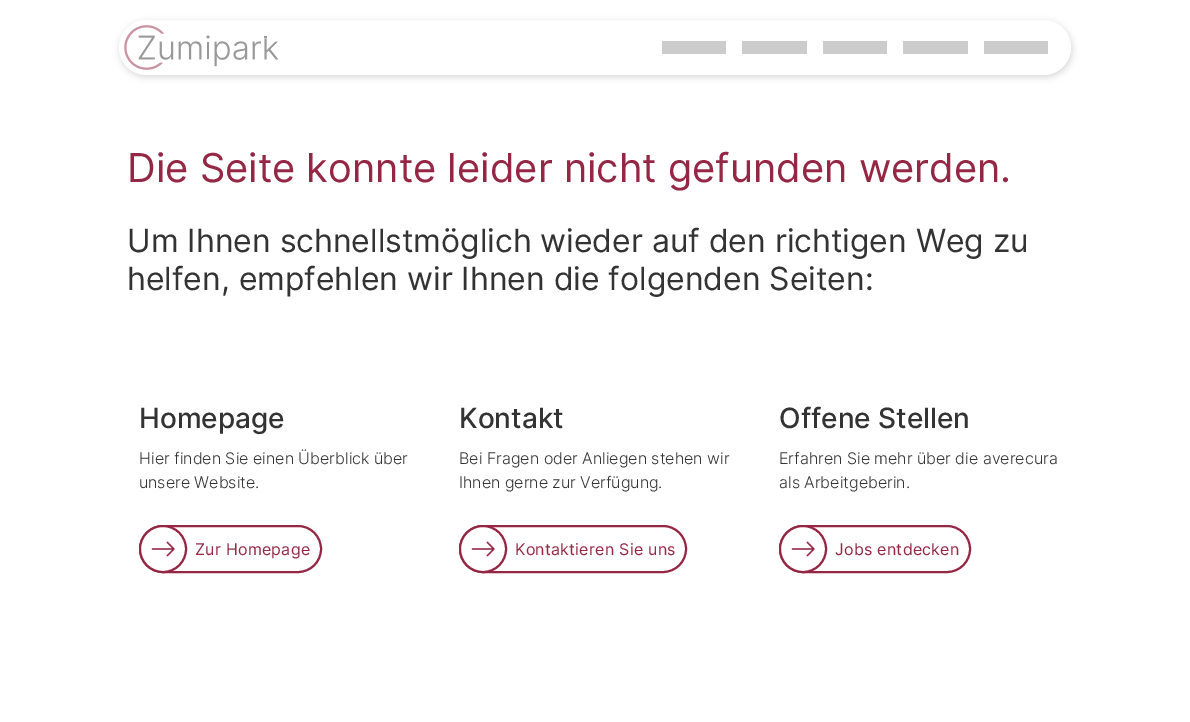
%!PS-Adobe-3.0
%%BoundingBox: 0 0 1190 722
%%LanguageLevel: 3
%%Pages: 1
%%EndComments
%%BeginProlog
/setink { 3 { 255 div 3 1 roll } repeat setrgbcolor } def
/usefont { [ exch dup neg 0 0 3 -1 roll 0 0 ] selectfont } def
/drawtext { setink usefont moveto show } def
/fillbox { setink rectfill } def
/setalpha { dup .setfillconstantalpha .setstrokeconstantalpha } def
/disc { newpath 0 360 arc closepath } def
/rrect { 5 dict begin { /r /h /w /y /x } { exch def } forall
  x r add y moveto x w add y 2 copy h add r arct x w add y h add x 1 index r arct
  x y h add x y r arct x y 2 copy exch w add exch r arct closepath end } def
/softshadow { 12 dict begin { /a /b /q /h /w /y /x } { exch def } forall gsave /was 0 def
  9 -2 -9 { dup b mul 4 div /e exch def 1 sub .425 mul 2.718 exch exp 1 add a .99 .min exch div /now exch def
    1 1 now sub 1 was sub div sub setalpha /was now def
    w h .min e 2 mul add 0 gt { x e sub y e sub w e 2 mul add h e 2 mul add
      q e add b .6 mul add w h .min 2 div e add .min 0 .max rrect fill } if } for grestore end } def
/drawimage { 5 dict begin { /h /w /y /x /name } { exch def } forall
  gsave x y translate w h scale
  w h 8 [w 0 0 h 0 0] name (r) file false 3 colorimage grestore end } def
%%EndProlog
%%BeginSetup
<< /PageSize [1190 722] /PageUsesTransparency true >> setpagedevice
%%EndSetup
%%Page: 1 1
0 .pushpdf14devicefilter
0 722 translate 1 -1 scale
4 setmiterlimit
0 0 1190 722 255 255 255 fillbox
213 213 213 setink
120 22 952 55 27.5 3.5 1 softshadow
255 255 255 setink
119 20 952 55 27.5 rrect fill
(assets/img1.rgb) 124 25 155 45 drawimage
662 41 64 13 204 204 204 fillbox
742 41 65 13 204 204 204 fillbox
823 41 64 13 204 204 204 fillbox
903 41 65 13 204 204 204 fillbox
984 41 64 13 204 204 204 fillbox
(Die Seite konnte leider nicht gefunden werden.) 127 182 /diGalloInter-Regular 39.85 149 39 68 drawtext
(Um Ihnen schnellstmöglich wieder auf den richtigen Weg zu) 127 252 /diGalloInter-Regular 31.9 51 51 51 drawtext
(helfen, empfehlen wir Ihnen die folgenden Seiten:) 127 290 /diGalloInter-Regular 31.9 51 51 51 drawtext
(Homepage) 139 428 /diGalloInter-Medium 28 51 51 51 drawtext
(Hier finden Sie einen Überblick über) 139 464 /diGalloInter-Light 16 51 51 51 drawtext
(unsere Website.) 139 488 /diGalloInter-Light 16 51 51 51 drawtext
149 39 68 setink
2 setlinewidth
140 526 181 46 23 rrect stroke
255 255 255 setink
163 549 23 disc gsave fill grestore
149 39 68 setink
stroke
(assets/img2.rgb) 151 541 24 16 drawimage
/diGalloInter-Regular 16 usefont
195 555 moveto 0.25 0 (Zur Homepage) ashow
(Kontakt) 459 428 /diGalloInter-Medium 28 51 51 51 drawtext
(Bei Fragen oder Anliegen stehen wir) 459 464 /diGalloInter-Light 16 51 51 51 drawtext
(Ihnen gerne zur Verfügung.) 459 488 /diGalloInter-Light 16 51 51 51 drawtext
149 39 68 setink
460 526 226 46 23 rrect stroke
255 255 255 setink
483 549 23 disc gsave fill grestore
149 39 68 setink
stroke
(assets/img2.rgb) 471 541 24 16 drawimage
/diGalloInter-Regular 16 usefont
515 555 moveto 0.25 0 (Kontaktieren Sie uns) ashow
(Offene Stellen) 779 428 /diGalloInter-Medium 28 51 51 51 drawtext
(Erfahren Sie mehr über die averecura) 779 464 /diGalloInter-Light 16 51 51 51 drawtext
(als Arbeitgeberin.) 779 488 /diGalloInter-Light 16 51 51 51 drawtext
149 39 68 setink
780 526 190 46 23 rrect stroke
255 255 255 setink
803 549 23 disc gsave fill grestore
149 39 68 setink
stroke
(assets/img2.rgb) 791 541 24 16 drawimage
/diGalloInter-Regular 16 usefont
835 555 moveto 0.25 0 (Jobs entdecken) ashow
.poppdf14devicefilter showpage
%%EOF
